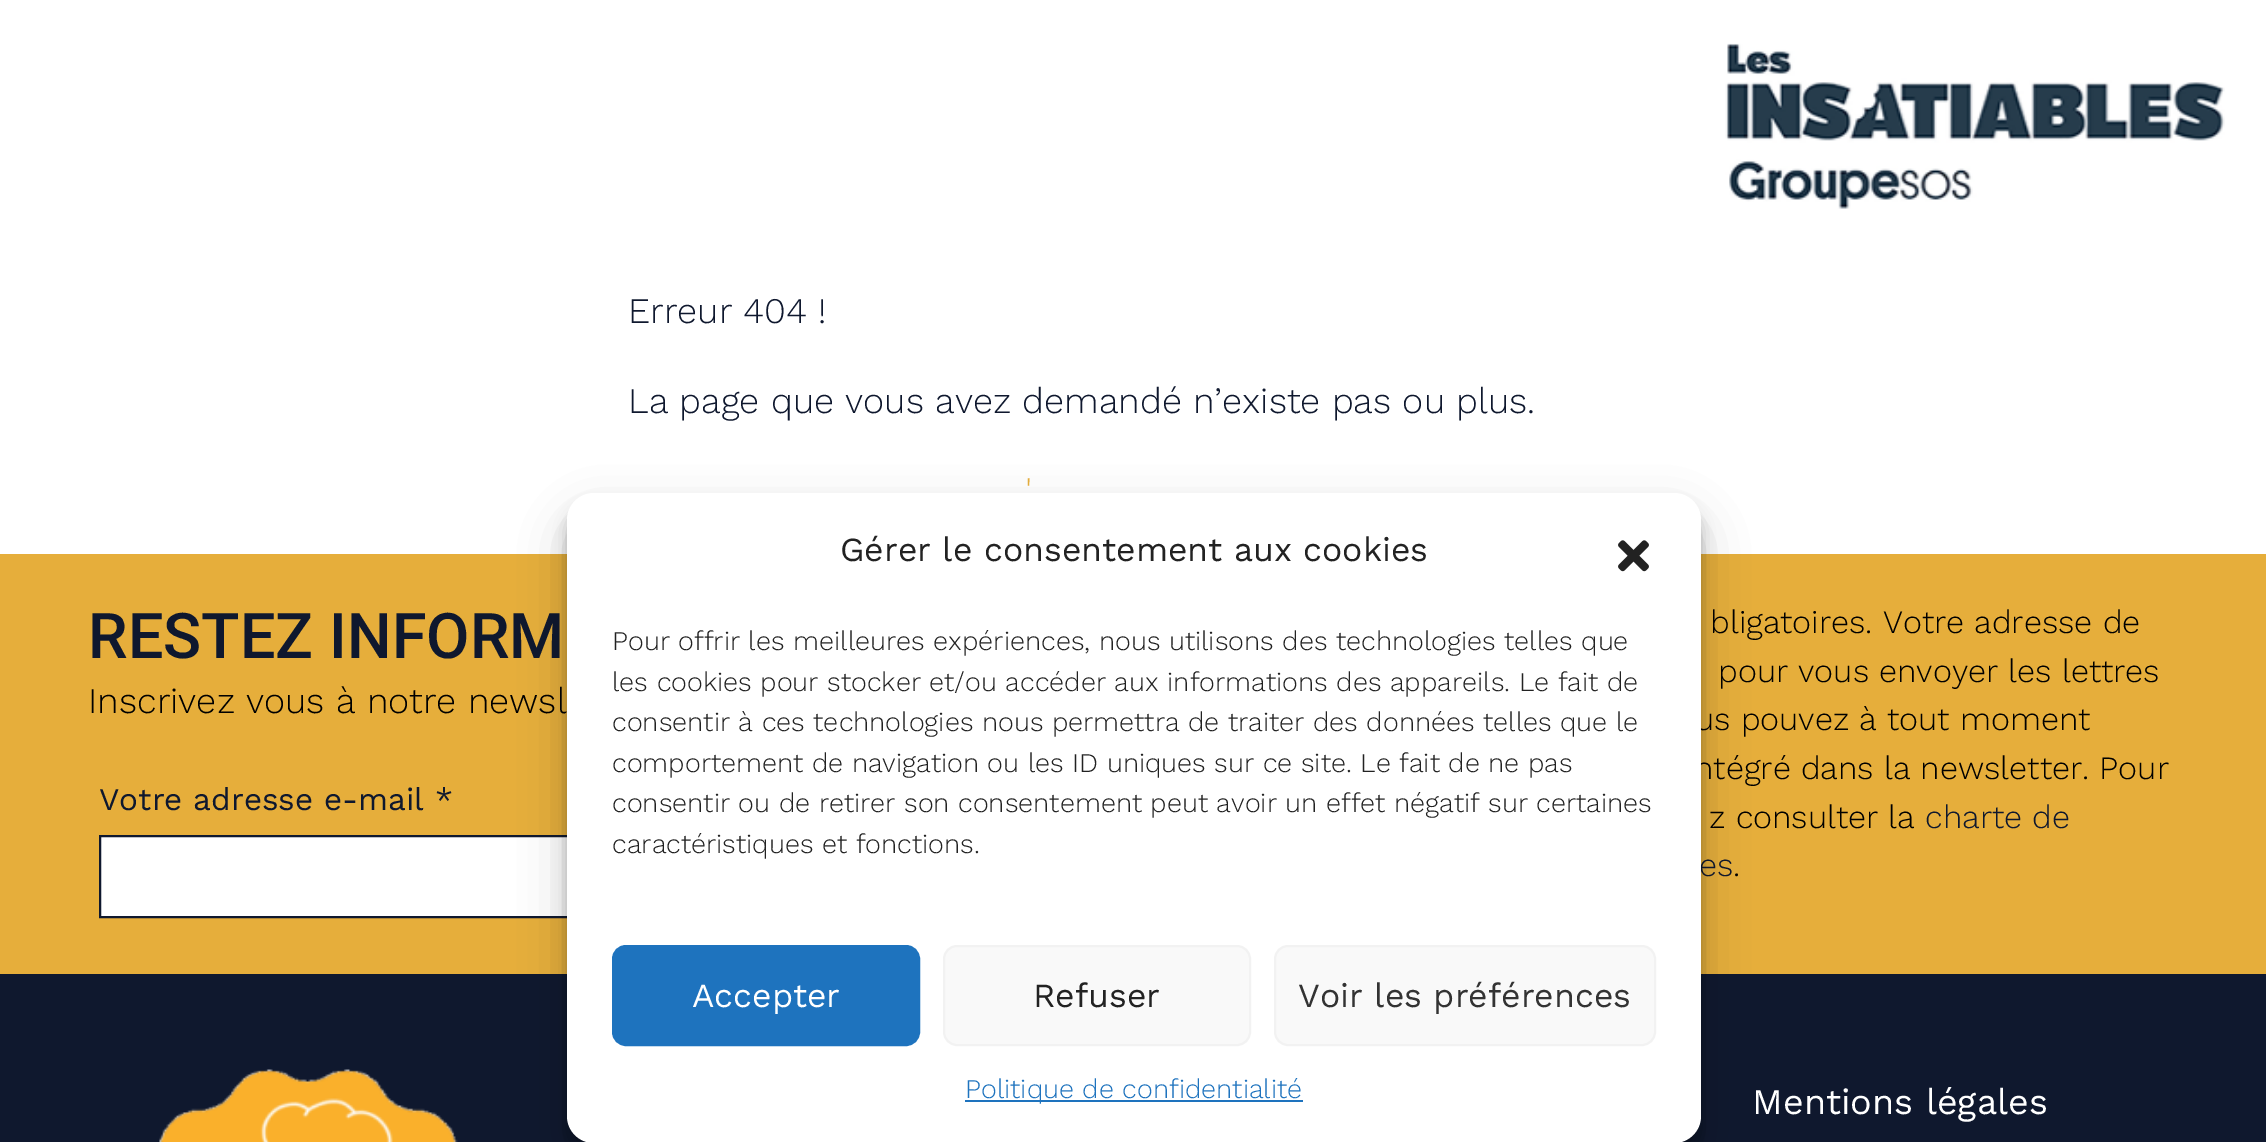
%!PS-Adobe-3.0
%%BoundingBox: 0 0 2266 1142
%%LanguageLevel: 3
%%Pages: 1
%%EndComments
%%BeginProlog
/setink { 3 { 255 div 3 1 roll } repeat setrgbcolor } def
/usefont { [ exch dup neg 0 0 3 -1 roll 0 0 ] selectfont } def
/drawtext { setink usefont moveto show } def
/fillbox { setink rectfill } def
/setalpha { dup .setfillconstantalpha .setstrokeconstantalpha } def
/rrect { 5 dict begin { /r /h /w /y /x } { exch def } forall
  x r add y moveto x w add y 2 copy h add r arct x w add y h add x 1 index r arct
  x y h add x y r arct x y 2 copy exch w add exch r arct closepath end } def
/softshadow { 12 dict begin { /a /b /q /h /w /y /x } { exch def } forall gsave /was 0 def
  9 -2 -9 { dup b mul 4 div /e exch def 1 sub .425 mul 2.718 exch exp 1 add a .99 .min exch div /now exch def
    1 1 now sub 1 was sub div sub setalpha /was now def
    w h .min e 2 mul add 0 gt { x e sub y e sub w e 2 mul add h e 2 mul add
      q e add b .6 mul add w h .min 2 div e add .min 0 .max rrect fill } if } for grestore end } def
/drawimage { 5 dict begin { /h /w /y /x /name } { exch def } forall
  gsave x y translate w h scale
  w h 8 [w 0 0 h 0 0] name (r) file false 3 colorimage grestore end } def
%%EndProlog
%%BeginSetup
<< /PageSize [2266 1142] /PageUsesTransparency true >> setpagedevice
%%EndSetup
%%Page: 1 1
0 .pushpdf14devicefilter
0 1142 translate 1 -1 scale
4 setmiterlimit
0 0 2266 1142 255 255 255 fillbox
(assets/img1.rgb) 1725 43 500 166 drawimage
(Erreur 404 !) 628 323 /WorkSans-Light 36 15 24 46 drawtext
(La page que vous avez demandé n’existe pas ou plus.) 628 413 /WorkSans-Light 36 15 24 46 drawtext
(') 1025 503 /WorkSans-Light 36 230 174 59 drawtext
0 554 2266 420 230 174 59 fillbox
(RESTEZ INFORM) 88 658 /Roboto-Medium 63 15 24 46 drawtext
(Inscrivez vous à notre newsl) 88 713 /WorkSans-Light 36 0 0 0 drawtext
(Votre adresse e-mail *) 99 810 /WorkSans-Regular 31.5 15 24 46 drawtext
101 837 466 79 255 255 255 fillbox
15 24 46 setink
2 setlinewidth
100 836 475 81 rectstroke
(bligatoires. Votre adresse de) 1710 633 /WorkSans-Light 32.4 0 0 0 drawtext
(pour vous envoyer les lettres) 1718 682 /WorkSans-Light 32.4 0 0 0 drawtext
(us pouvez à tout moment) 1695 730 /WorkSans-Light 32.4 0 0 0 drawtext
(ntégré dans la newsletter. Pour) 1694 779 /WorkSans-Light 32.4 0 0 0 drawtext
(z consulter la) 1709 828 /WorkSans-Light 32.4 0 0 0 drawtext
(charte de) 1925 828 /WorkSans-Light 32.4 15 24 46 drawtext
(es) 1699 876 /WorkSans-Light 32.4 15 24 46 drawtext
(.) 1733 876 /WorkSans-Light 32.4 0 0 0 drawtext
0 974 2266 168 15 24 46 fillbox
(assets/img2.rgb) 159 1069 299 73 drawimage
(Mentions légales) 1752 1114 /WorkSans-Regular 36 255 255 255 drawtext
0 0 0 setink
567 506 1134 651 27 7 0.23 softshadow
567 515 1134 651 27 22.5 0.19 softshadow
255 255 255 setink
567 493 1134 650 27 rrect fill
(Gérer le consentement aux cookies) 840 561 /WorkSans-Regular 33.75 34 34 34 drawtext
(assets/img3.rgb) 1618 540 31 32 drawimage
(Pour offrir les meilleures expériences, nous utilisons des technologies telles que) 612 650 /WorkSans-Light 27 34 34 34 drawtext
(les cookies pour stocker et/ou accéder aux informations des appareils. Le fait de) 612 691 /WorkSans-Light 27 34 34 34 drawtext
(consentir à ces technologies nous permettra de traiter des données telles que le) 612 731 /WorkSans-Light 27 34 34 34 drawtext
(comportement de navigation ou les ID uniques sur ce site. Le fait de ne pas) 612 772 /WorkSans-Light 27 34 34 34 drawtext
(consentir ou de retirer son consentement peut avoir un effet négatif sur certaines) 612 812 /WorkSans-Light 27 34 34 34 drawtext
(caractéristiques et fonctions.) 612 853 /WorkSans-Light 27 34 34 34 drawtext
30 115 190 setink
613 946 306 99 13 rrect gsave fill grestore
stroke
(Accepter) 692 1007 /WorkSans-Regular 33.75 255 255 255 drawtext
249 249 249 setink
944 946 306 99 13 rrect gsave fill grestore
242 242 242 setink
stroke
(Refuser) 1033 1007 /WorkSans-Regular 33.75 34 34 34 drawtext
249 249 249 setink
1275 946 380 99 13 rrect gsave fill grestore
242 242 242 setink
stroke
(Voir les préférences) 1298 1007 /WorkSans-Regular 33.75 51 51 51 drawtext
965 1100 338 2 30 115 190 fillbox
(Politique de confidentialité) 965 1098 /WorkSans-Light 27 30 115 190 drawtext
.poppdf14devicefilter showpage
%%EOF
